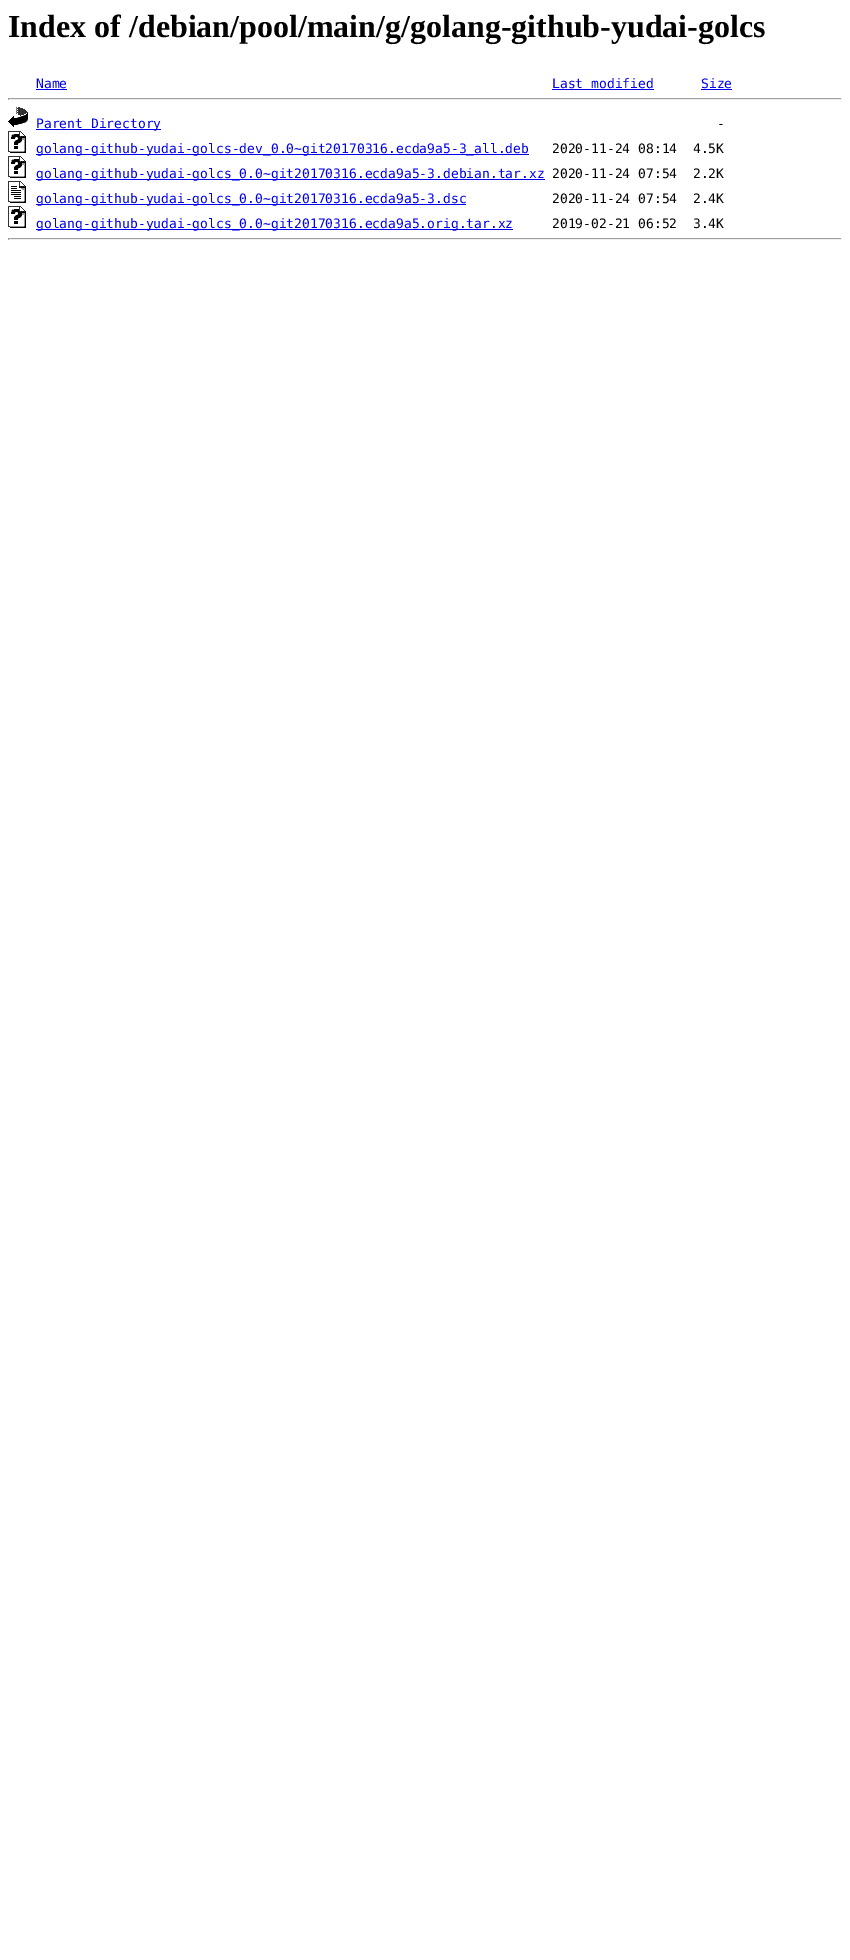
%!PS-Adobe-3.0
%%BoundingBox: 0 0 850 1960
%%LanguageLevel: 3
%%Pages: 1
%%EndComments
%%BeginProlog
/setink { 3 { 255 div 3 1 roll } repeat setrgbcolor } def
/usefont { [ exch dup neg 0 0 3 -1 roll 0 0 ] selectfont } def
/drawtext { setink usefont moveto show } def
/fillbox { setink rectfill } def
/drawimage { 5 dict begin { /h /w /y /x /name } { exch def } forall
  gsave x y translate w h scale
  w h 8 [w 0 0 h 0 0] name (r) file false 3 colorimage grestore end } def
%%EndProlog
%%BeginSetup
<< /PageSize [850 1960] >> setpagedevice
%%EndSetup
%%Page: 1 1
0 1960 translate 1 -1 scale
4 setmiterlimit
0 0 850 1960 255 255 255 fillbox
(Index of /debian/pool/main/g/golang-github-yudai-golcs) 8 37 /LiberationSerif-Bold 32 0 0 0 drawtext
(Name) 36 88 /DejaVuSansMono-Regular 13 0 0 238 drawtext
36 89 31 1 0 0 238 fillbox
(Last modified) 552 88 /DejaVuSansMono-Regular 13 0 0 238 drawtext
552 89 102 1 0 0 238 fillbox
(Size) 701 88 /DejaVuSansMono-Regular 13 0 0 238 drawtext
701 89 31 1 0 0 238 fillbox
8 98 834 1 159 159 159 fillbox
841 98 1 2 238 238 238 fillbox
8 99 834 1 238 238 238 fillbox
8 98 1 2 159 159 159 fillbox
(assets/img1.rgb) 8 107 20 20 drawimage
36 129 125 1 0 0 238 fillbox
(Parent Directory) 36 128 /DejaVuSansMono-Regular 13 0 0 238 drawtext
(-) 717 128 /DejaVuSansMono-Regular 13 0 0 0 drawtext
(assets/img2.rgb) 8 131 18 22 drawimage
36 154 493 1 0 0 238 fillbox
(golang-github-yudai-golcs-dev_0.0~git20170316.ecda9a5-3_all.deb) 36 153 /DejaVuSansMono-Regular 13 0 0 238 drawtext
(2020-11-24 08:14  4.5K) 552 153 /DejaVuSansMono-Regular 13 0 0 0 drawtext
(assets/img2.rgb) 8 156 18 22 drawimage
36 179 509 1 0 0 238 fillbox
(golang-github-yudai-golcs_0.0~git20170316.ecda9a5-3.debian.tar.xz) 36 178 /DejaVuSansMono-Regular 13 0 0 238 drawtext
(2020-11-24 07:54  2.2K) 552 178 /DejaVuSansMono-Regular 13 0 0 0 drawtext
(assets/img3.rgb) 8 181 18 22 drawimage
36 204 430 1 0 0 238 fillbox
(golang-github-yudai-golcs_0.0~git20170316.ecda9a5-3.dsc) 36 203 /DejaVuSansMono-Regular 13 0 0 238 drawtext
(2020-11-24 07:54  2.4K) 552 203 /DejaVuSansMono-Regular 13 0 0 0 drawtext
(assets/img2.rgb) 8 206 18 22 drawimage
36 229 477 1 0 0 238 fillbox
(golang-github-yudai-golcs_0.0~git20170316.ecda9a5.orig.tar.xz) 36 228 /DejaVuSansMono-Regular 13 0 0 238 drawtext
(2019-02-21 06:52  3.4K) 552 228 /DejaVuSansMono-Regular 13 0 0 0 drawtext
8 238 834 1 159 159 159 fillbox
841 238 1 2 238 238 238 fillbox
8 239 834 1 238 238 238 fillbox
8 238 1 2 159 159 159 fillbox
showpage
%%EOF
